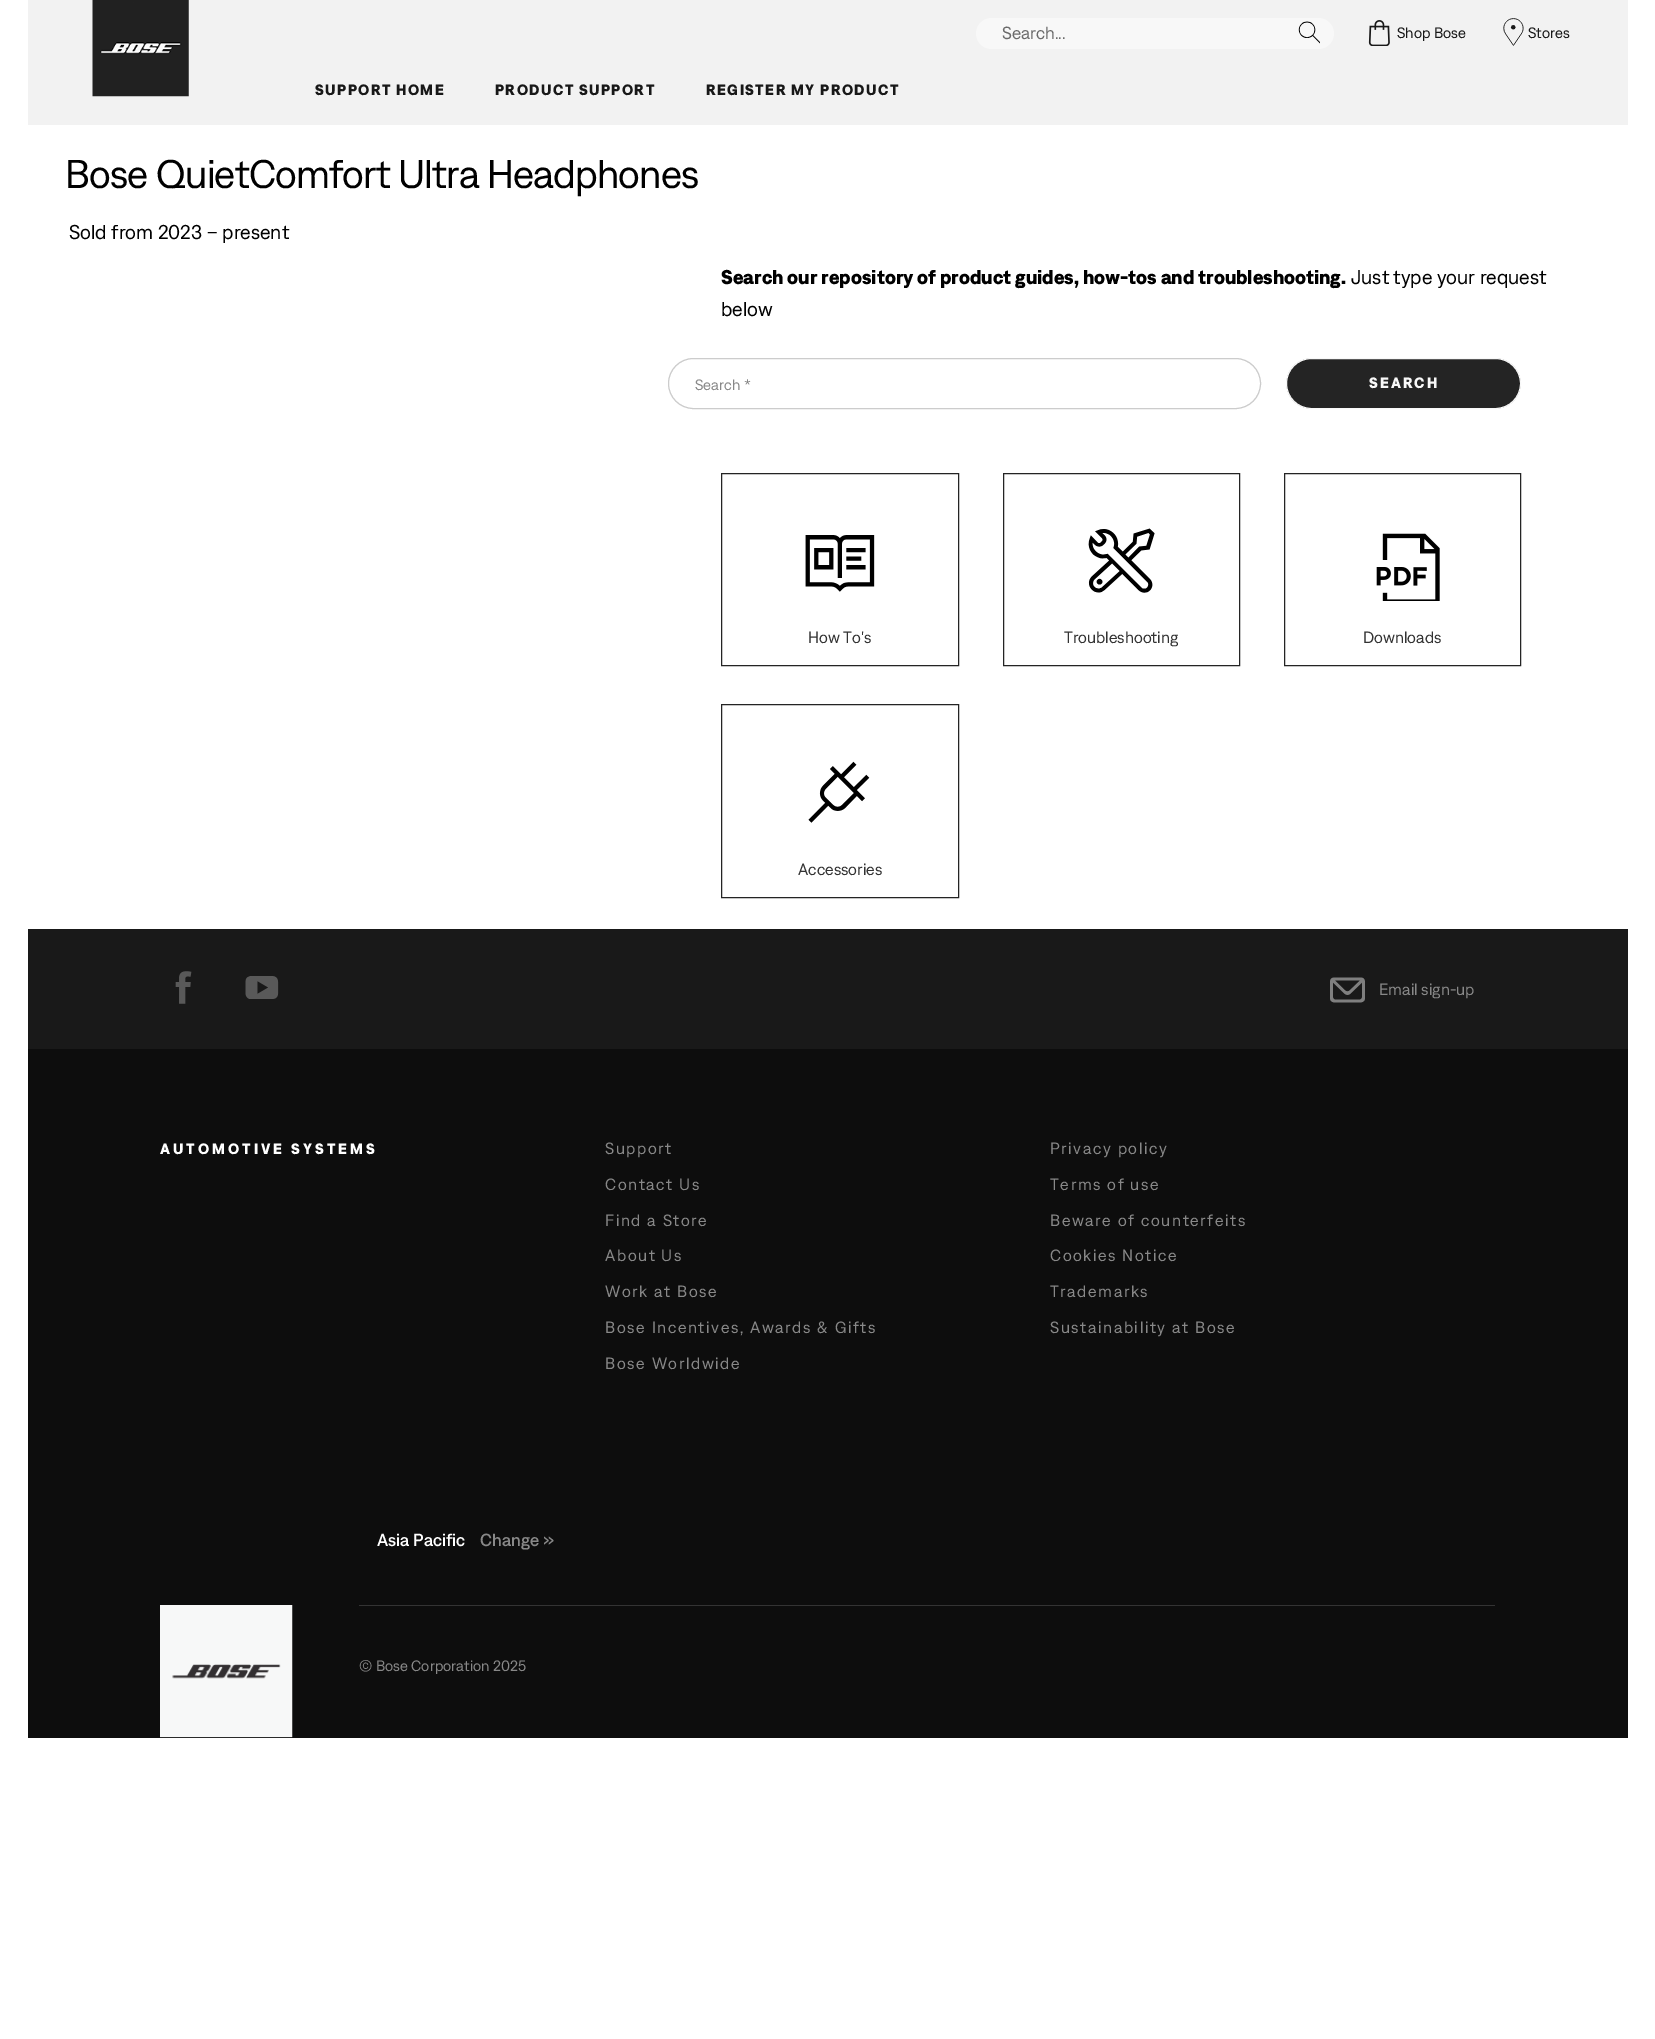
%!PS-Adobe-3.0
%%BoundingBox: 0 0 1655 2039
%%LanguageLevel: 3
%%Pages: 1
%%EndComments
%%BeginProlog
/setink { 3 { 255 div 3 1 roll } repeat setrgbcolor } def
/usefont { [ exch dup neg 0 0 3 -1 roll 0 0 ] selectfont } def
/drawtext { setink usefont moveto show } def
/fillbox { setink rectfill } def
/rrect { 5 dict begin { /r /h /w /y /x } { exch def } forall
  x r add y moveto x w add y 2 copy h add r arct x w add y h add x 1 index r arct
  x y h add x y r arct x y 2 copy exch w add exch r arct closepath end } def
/drawimage { 5 dict begin { /h /w /y /x /name } { exch def } forall
  gsave x y translate w h scale
  w h 8 [w 0 0 h 0 0] name (r) file false 3 colorimage grestore end } def
%%EndProlog
%%BeginSetup
<< /PageSize [1655 2039] >> setpagedevice
%%EndSetup
%%Page: 1 1
0 2039 translate 1 -1 scale
4 setmiterlimit
0 0 1655 2039 255 255 255 fillbox
28 0 1600 125 242 242 242 fillbox
(assets/img1.rgb) 92 0 97 97 drawimage
248 248 248 setink
976 18 358 31 15.5 rrect fill
(Search...) 1002 39 /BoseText-Regular 17.5 107 107 107 drawtext
(assets/img2.rgb) 1298 21 22 23 drawimage
(assets/img3.rgb) 1368 20 22 26 drawimage
(Shop Bose) 1397 38 /BoseText-Regular 15 24 24 24 drawtext
(assets/img4.rgb) 1503 18 21 28 drawimage
(Stores) 1528 38 /BoseText-Regular 15 24 24 24 drawtext
/BoseText-Bold 15 usefont
315 95 moveto 1.4 0 (SUPPORT HOME) ashow
495 95 moveto 1.4 0 (PRODUCT SUPPORT) ashow
706 95 moveto 1.4 0 (REGISTER MY PRODUCT) ashow
/BoseText-Regular 40 usefont
0 0 0 setink
65 188 moveto -0.8 0 (Bose QuietComfort Ultra Headphones) ashow
(Sold from 2023 – present) 69 239 /BoseText-Regular 20 0 0 0 drawtext
(Search our repository of product guides, how-tos and troubleshooting.) 721 284 /BoseText-Bold 20 0 0 0 drawtext
(Just type your request) 1351 284 /BoseText-Regular 20 0 0 0 drawtext
(below) 721 316 /BoseText-Regular 20 0 0 0 drawtext
204 204 204 setink
668.5 358.5 592 50 25 rrect stroke
(Search *) 695 390 /BoseText-Regular 15 136 136 136 drawtext
36 36 36 setink
1286.5 358.5 234 50 25 rrect gsave fill grestore
248 248 248 setink
stroke
/BoseText-Bold 15 usefont
1369 388 moveto 2 0 (SEARCH) ashow
36 36 36 setink
721.5 473.5 237 192 rectstroke
(assets/img5.rgb) 805 535 70 57 drawimage
(How To's) 808 643 /BoseText-Regular 16.25 51 51 51 drawtext
36 36 36 setink
1003.5 473.5 236 192 rectstroke
(assets/img6.rgb) 1088 528 67 65 drawimage
(Troubleshooting) 1064 643 /BoseText-Regular 16.25 51 51 51 drawtext
36 36 36 setink
1284.5 473.5 236 192 rectstroke
(assets/img7.rgb) 1376 533 64 68 drawimage
(Downloads) 1363 643 /BoseText-Regular 16.25 51 51 51 drawtext
36 36 36 setink
721.5 704.5 237 193 rectstroke
(assets/img8.rgb) 808 761 62 62 drawimage
(Accessories) 798 875 /BoseText-Regular 16.25 51 51 51 drawtext
28 1049 1600 689 13 13 13 fillbox
28 929 1600 120 25 25 25 fillbox
(assets/img9.rgb) 175 971 17 33 drawimage
(assets/img10.rgb) 245 976 34 23 drawimage
(assets/img11.rgb) 1330 977 35 26 drawimage
(Email sign-up) 1379 995 /BoseText-Regular 16.25 136 136 136 drawtext
/BoseText-Bold 15 usefont
255 255 255 setink
160 1154 moveto 3 0 (AUTOMOTIVE SYSTEMS) ashow
/BoseText-Regular 16.25 usefont
136 136 136 setink
605 1154 moveto 1.6 0 (Support) ashow
605 1190 moveto 1.6 0 (Contact Us) ashow
605 1226 moveto 1.6 0 (Find a Store) ashow
605 1261 moveto 1.6 0 (About Us) ashow
605 1297 moveto 1.6 0 (Work at Bose) ashow
605 1333 moveto 1.6 0 (Bose Incentives, Awards & Gifts) ashow
605 1369 moveto 1.6 0 (Bose Worldwide) ashow
1050 1154 moveto 1.6 0 (Privacy policy) ashow
1050 1190 moveto 1.6 0 (Terms of use) ashow
1050 1226 moveto 1.6 0 (Beware of counterfeits) ashow
1050 1261 moveto 1.6 0 (Cookies Notice) ashow
1050 1297 moveto 1.6 0 (Trademarks) ashow
1050 1333 moveto 1.6 0 (Sustainability at Bose) ashow
(Asia Pacific) 377 1546 /BoseText-Medium 17.5 255 255 255 drawtext
(Change ») 480 1546 /BoseText-Medium 17.5 136 136 136 drawtext
(assets/img12.rgb) 160 1605 133 133 drawimage
359 1605 1136 1 51 51 51 fillbox
(© Bose Corporation 2025) 359 1671 /BoseText-Regular 15 136 136 136 drawtext
showpage
%%EOF
